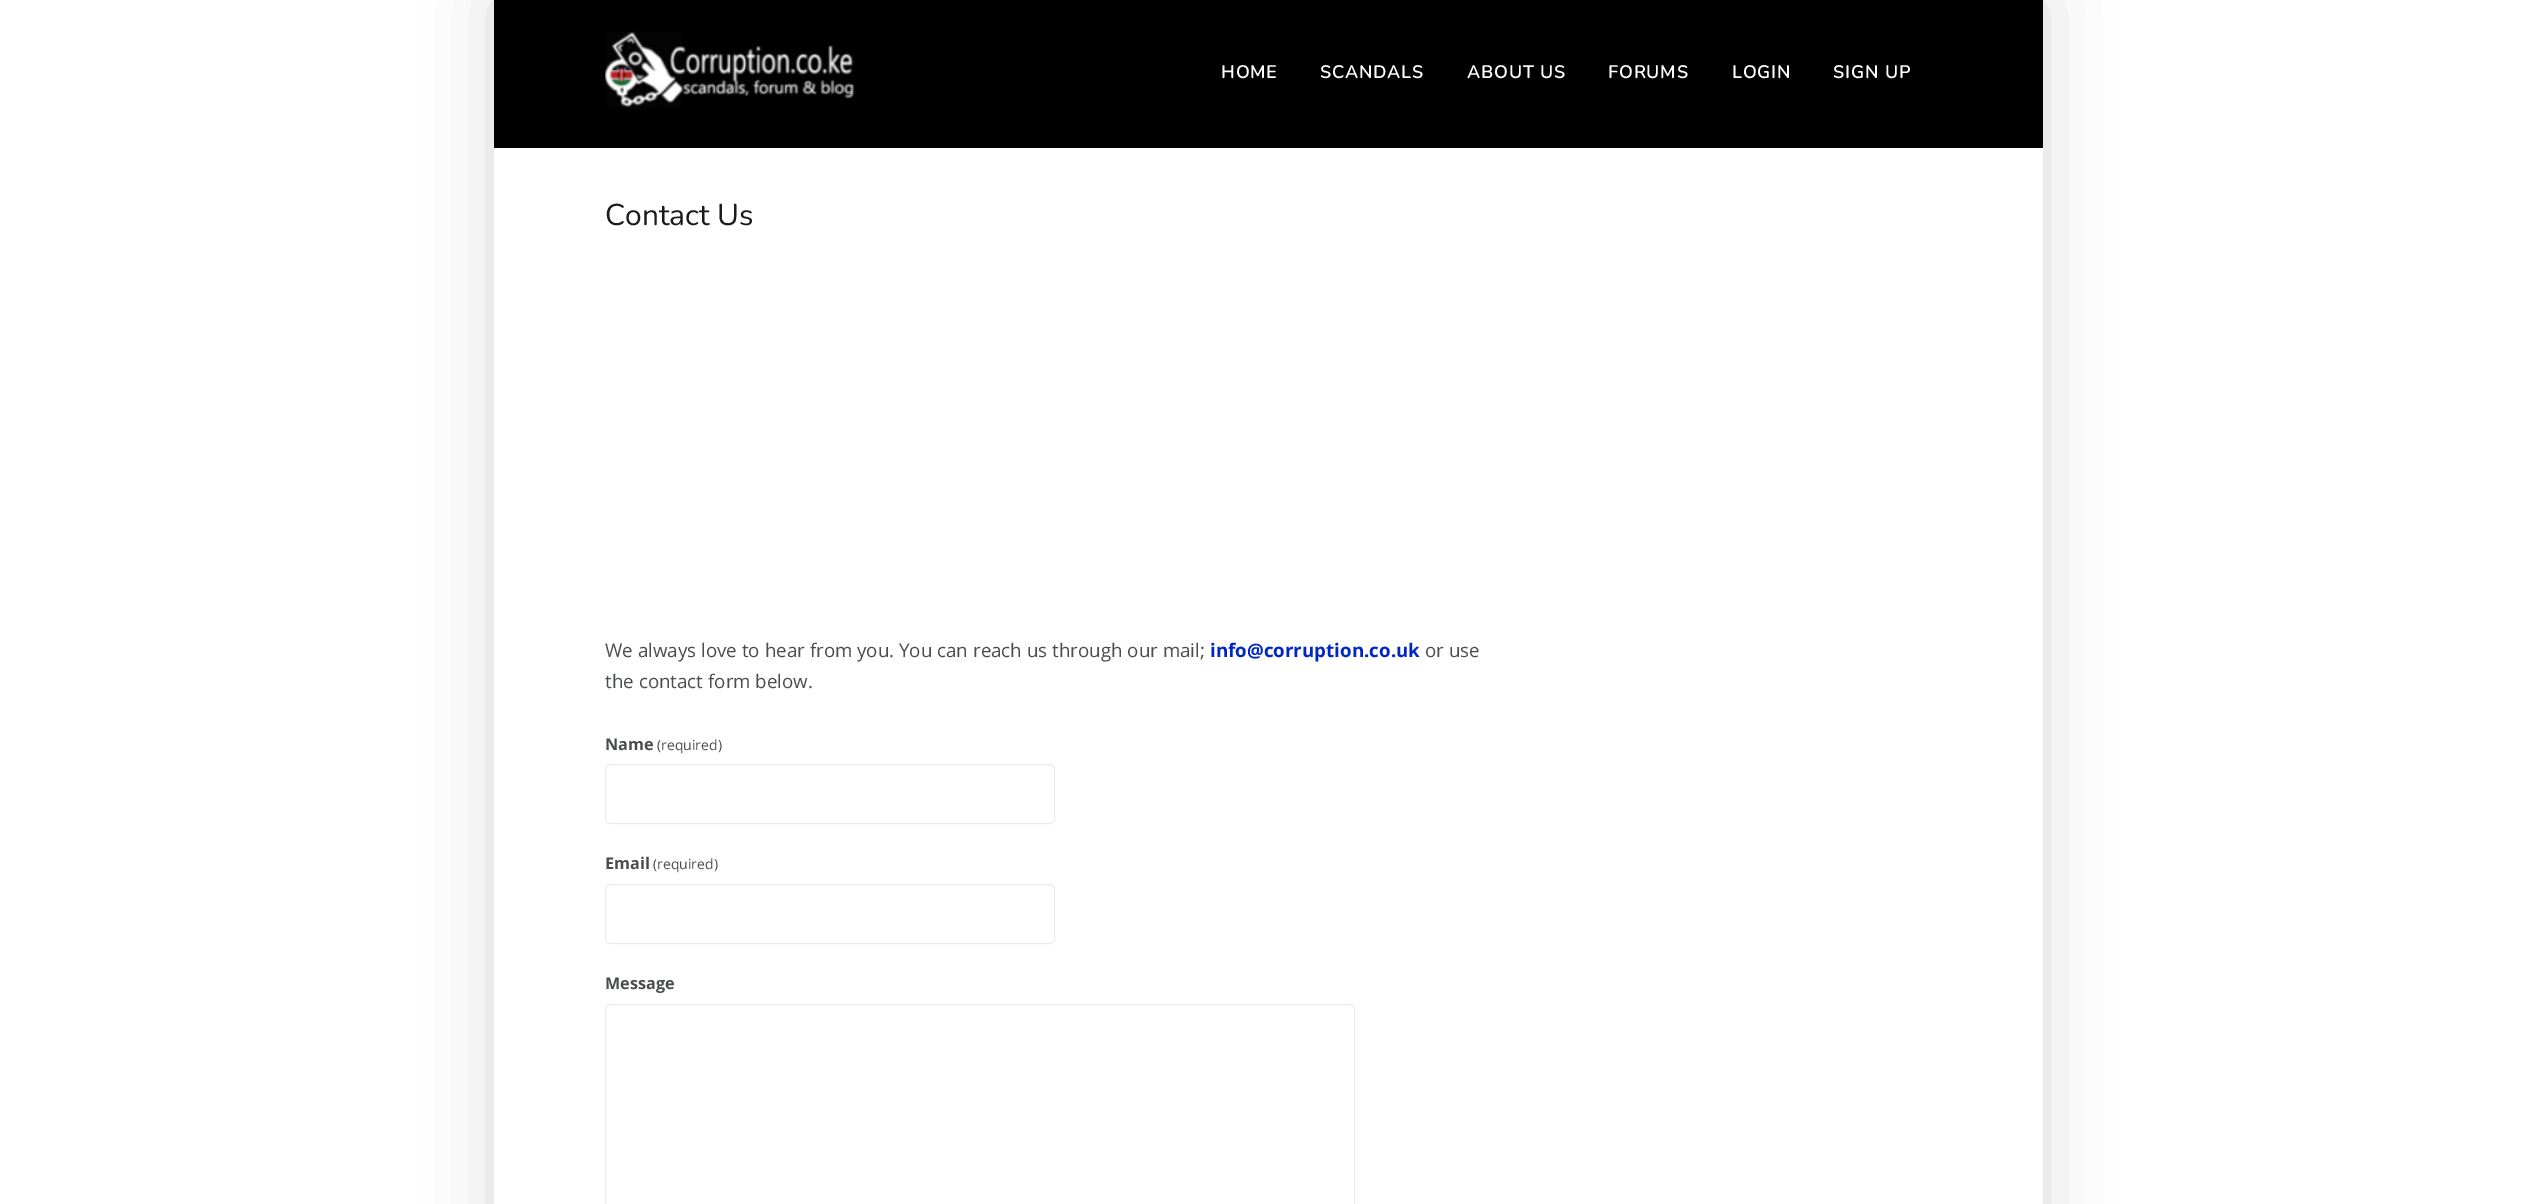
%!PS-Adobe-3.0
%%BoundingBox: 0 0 2535 1204
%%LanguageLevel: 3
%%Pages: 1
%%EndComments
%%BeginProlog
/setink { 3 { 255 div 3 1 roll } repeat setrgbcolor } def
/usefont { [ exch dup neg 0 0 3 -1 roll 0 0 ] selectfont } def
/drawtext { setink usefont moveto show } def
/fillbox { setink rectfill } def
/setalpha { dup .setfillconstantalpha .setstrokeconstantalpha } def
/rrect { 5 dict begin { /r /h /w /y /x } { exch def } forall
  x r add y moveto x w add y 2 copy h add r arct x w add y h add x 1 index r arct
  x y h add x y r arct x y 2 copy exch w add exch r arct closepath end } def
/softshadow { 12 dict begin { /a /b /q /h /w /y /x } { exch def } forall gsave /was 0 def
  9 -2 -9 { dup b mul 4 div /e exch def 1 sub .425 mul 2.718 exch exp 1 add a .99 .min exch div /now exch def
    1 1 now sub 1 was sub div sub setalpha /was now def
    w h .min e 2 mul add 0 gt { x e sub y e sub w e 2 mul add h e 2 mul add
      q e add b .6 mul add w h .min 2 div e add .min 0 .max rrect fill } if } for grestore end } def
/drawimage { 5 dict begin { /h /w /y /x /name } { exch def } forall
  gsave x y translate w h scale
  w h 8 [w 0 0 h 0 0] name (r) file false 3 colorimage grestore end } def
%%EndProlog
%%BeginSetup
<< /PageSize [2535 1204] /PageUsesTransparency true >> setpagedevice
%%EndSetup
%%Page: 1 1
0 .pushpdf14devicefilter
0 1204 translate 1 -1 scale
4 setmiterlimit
0 0 2535 1204 255 255 255 fillbox
0 0 0 setink
494 0 1549 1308 0 34.5 0.15 softshadow
494 148 1549 1056 255 255 255 fillbox
494 0 1549 148 0 0 0 fillbox
(assets/img1.rgb) 605 31 250 77 drawimage
/Nunito-Bold 17.5 usefont
255 255 255 setink
1221 78 moveto 1.25 0 (HOME) ashow
1320 78 moveto 1.25 0 (SCANDALS) ashow
1467 78 moveto 1.25 0 (ABOUT US) ashow
1608 78 moveto 1.25 0 (FORUMS) ashow
1732 78 moveto 1.25 0 (LOGIN) ashow
1833 78 moveto 1.25 0 (SIGN UP) ashow
(Contact Us) 605 225 /Nunito-ExtraLight 30 26 26 26 drawtext
(We always love to hear from you. You can reach us through our mail;) 605 657 /OpenSans-Regular 18.75 75 77 77 drawtext
(info@corruption.co.uk) 1210 657 /OpenSans-Bold 18.75 0 39 196 drawtext
(or use) 1425 657 /OpenSans-Regular 18.75 75 77 77 drawtext
(the contact form below.) 605 688 /OpenSans-Regular 18.75 75 77 77 drawtext
(Name) 605 750 /OpenSans-Bold 16.25 75 77 77 drawtext
(\(required\)) 657 750 /OpenSans-Regular 14 75 77 77 drawtext
235 235 235 setink
605.5 764.5 449 59 4.5 rrect stroke
(Email) 605 869 /OpenSans-Bold 16.25 75 77 77 drawtext
(\(required\)) 653 869 /OpenSans-Regular 14 75 77 77 drawtext
235 235 235 setink
605.5 884.5 449 59 4.5 rrect stroke
(Message) 605 989 /OpenSans-Bold 16.25 75 77 77 drawtext
235 235 235 setink
605.5 1004.5 749 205 4.5 rrect stroke
.poppdf14devicefilter showpage
%%EOF
